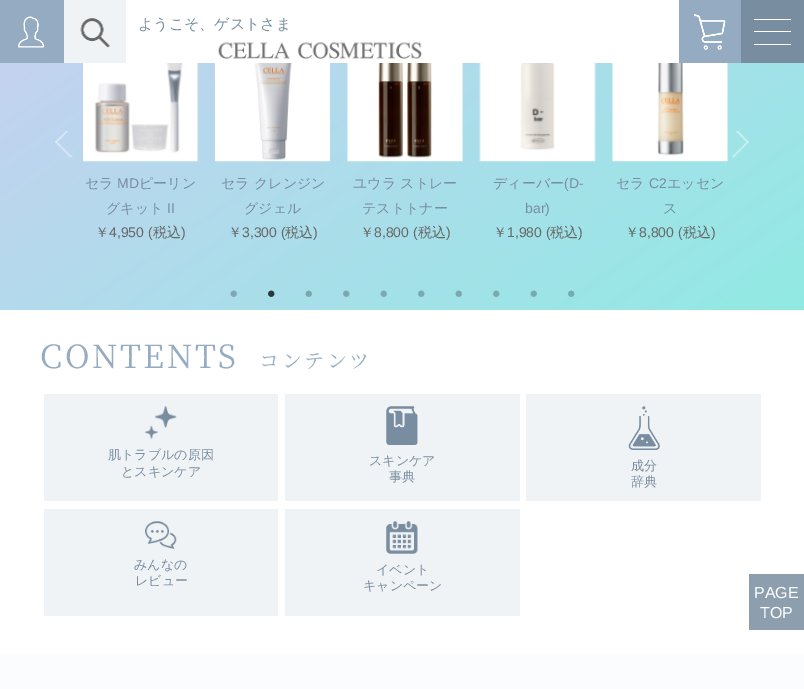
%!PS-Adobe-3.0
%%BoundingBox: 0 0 804 689
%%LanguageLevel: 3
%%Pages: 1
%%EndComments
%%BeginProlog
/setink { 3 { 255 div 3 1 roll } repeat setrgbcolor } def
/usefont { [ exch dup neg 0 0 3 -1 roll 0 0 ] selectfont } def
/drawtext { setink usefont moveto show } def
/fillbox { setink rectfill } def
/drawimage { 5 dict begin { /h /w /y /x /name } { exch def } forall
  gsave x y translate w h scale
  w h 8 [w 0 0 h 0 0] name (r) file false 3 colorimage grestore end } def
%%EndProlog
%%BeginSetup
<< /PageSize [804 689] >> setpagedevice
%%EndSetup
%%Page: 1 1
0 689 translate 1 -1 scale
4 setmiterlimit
0 0 804 689 255 255 255 fillbox
0 0 64 63 148 171 193 fillbox
(assets/img1.rgb) 18 16 27 32 drawimage
64 0 62 63 240 243 246 fillbox
(assets/img2.rgb) 80 18 30 30 drawimage
(ようこそ、ゲストさま) 138 29 /WenQuanYiZenHei-Medium 15 121 141 160 drawtext
(assets/img3.rgb) 218 42 204 17 drawimage
679 0 62 63 148 171 193 fillbox
(assets/img4.rgb) 694 14 32 36 drawimage
741 0 63 63 121 141 160 fillbox
754 19 37 1 255 255 255 fillbox
754 31 37 1 255 255 255 fillbox
754 44 37 1 255 255 255 fillbox
gsave 0 63 moveto 804 63 lineto 804 310 lineto 0 310 lineto closepath clip newpath
<< /ShadingType 2 /ColorSpace /DeviceRGB /Coords [629 433 176 -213] /Extend [true true] /Function << /FunctionType 2 /Domain [0 1] /C0 [0.569 0.918 0.894] /C1 [0.804 0.804 0.949] /N 1 >> >> shfill grestore
(assets/img5.rgb) 55 131 18 27 drawimage
(assets/img6.rgb) 732 131 17 27 drawimage
(assets/img7.rgb) 83 63 115 99 drawimage
(セラ) 85 188 /WenQuanYiZenHei-Medium 14 121 141 160 drawtext
(MD) 117 188 /LiberationSans-Regular 14 121 141 160 drawtext
(ピーリン) 139 188 /WenQuanYiZenHei-Medium 14 121 141 160 drawtext
(グキット) 106 213 /WenQuanYiZenHei-Medium 14 121 141 160 drawtext
(II) 167 213 /LiberationSans-Regular 14 121 141 160 drawtext
(￥) 95 237 /WenQuanYiZenHei-Medium 14 104 104 104 drawtext
(4,950 \() 109 237 /LiberationSans-Regular 14 104 104 104 drawtext
(税込) 153 237 /WenQuanYiZenHei-Medium 14 104 104 104 drawtext
(\)) 181 237 /LiberationSans-Regular 14 104 104 104 drawtext
(assets/img8.rgb) 215 63 115 99 drawimage
(セラ クレンジン) 221 188 /WenQuanYiZenHei-Medium 14 121 141 160 drawtext
(グジェル) 244 213 /WenQuanYiZenHei-Medium 14 121 141 160 drawtext
(￥) 228 237 /WenQuanYiZenHei-Medium 14 104 104 104 drawtext
(3,300 \() 242 237 /LiberationSans-Regular 14 104 104 104 drawtext
(税込) 285 237 /WenQuanYiZenHei-Medium 14 104 104 104 drawtext
(\)) 313 237 /LiberationSans-Regular 14 104 104 104 drawtext
(assets/img9.rgb) 347 63 116 99 drawimage
(ユウラ ストレー) 353 188 /WenQuanYiZenHei-Medium 14 121 141 160 drawtext
(テストトナー) 362 213 /WenQuanYiZenHei-Medium 14 121 141 160 drawtext
(￥) 360 237 /WenQuanYiZenHei-Medium 14 104 104 104 drawtext
(8,800 \() 374 237 /LiberationSans-Regular 14 104 104 104 drawtext
(税込) 418 237 /WenQuanYiZenHei-Medium 14 104 104 104 drawtext
(\)) 446 237 /LiberationSans-Regular 14 104 104 104 drawtext
(assets/img10.rgb) 479 63 117 99 drawimage
(ディーバー) 493 188 /WenQuanYiZenHei-Medium 14 121 141 160 drawtext
(\(D-) 564 188 /LiberationSans-Regular 14 121 141 160 drawtext
(bar\)) 525 213 /LiberationSans-Regular 14 121 141 160 drawtext
(￥) 493 237 /WenQuanYiZenHei-Medium 14 104 104 104 drawtext
(1,980 \() 507 237 /LiberationSans-Regular 14 104 104 104 drawtext
(税込) 550 237 /WenQuanYiZenHei-Medium 14 104 104 104 drawtext
(\)) 578 237 /LiberationSans-Regular 14 104 104 104 drawtext
(assets/img11.rgb) 612 63 116 99 drawimage
(セラ) 616 188 /WenQuanYiZenHei-Medium 14 121 141 160 drawtext
(C2) 649 188 /LiberationSans-Regular 14 121 141 160 drawtext
(エッセン) 667 188 /WenQuanYiZenHei-Medium 14 121 141 160 drawtext
(ス) 663 213 /WenQuanYiZenHei-Medium 14 121 141 160 drawtext
(￥) 625 237 /WenQuanYiZenHei-Medium 14 104 104 104 drawtext
(8,800 \() 639 237 /LiberationSans-Regular 14 104 104 104 drawtext
(税込) 683 237 /WenQuanYiZenHei-Medium 14 104 104 104 drawtext
(\)) 711 237 /LiberationSans-Regular 14 104 104 104 drawtext
(assets/img12.rgb) 230 290 7 7 drawimage
(assets/img13.rgb) 268 290 7 7 drawimage
(assets/img14.rgb) 305 290 7 7 drawimage
(assets/img15.rgb) 343 290 7 7 drawimage
(assets/img16.rgb) 380 290 7 7 drawimage
(assets/img17.rgb) 418 290 7 7 drawimage
(assets/img18.rgb) 455 290 7 7 drawimage
(assets/img19.rgb) 493 290 7 7 drawimage
(assets/img20.rgb) 530 290 7 7 drawimage
(assets/img21.rgb) 568 290 7 7 drawimage
/NotoSerifJP-Regular 32 usefont
148 171 193 setink
40 368 moveto 2.5 0 (CONTENTS) ashow
/NotoSerifJP-Regular 20 usefont
259 368 moveto 2.5 0 (コンテンツ) ashow
44 394 234 107 240 243 246 fillbox
(assets/img22.rgb) 145 406 32 33 drawimage
(肌トラブルの原因) 108 459 /WenQuanYiZenHei-Medium 13 121 141 160 drawtext
(とスキンケア) 121 476 /WenQuanYiZenHei-Medium 13 121 141 160 drawtext
285 394 235 107 240 243 246 fillbox
(assets/img23.rgb) 386 406 32 39 drawimage
(スキンケア) 369 465 /WenQuanYiZenHei-Medium 13 121 141 160 drawtext
(事典) 389 481 /WenQuanYiZenHei-Medium 13 121 141 160 drawtext
526 394 235 107 240 243 246 fillbox
(assets/img24.rgb) 628 406 32 44 drawimage
(成分) 631 470 /WenQuanYiZenHei-Medium 13 121 141 160 drawtext
(辞典) 631 486 /WenQuanYiZenHei-Medium 13 121 141 160 drawtext
44 509 234 107 240 243 246 fillbox
(assets/img25.rgb) 145 521 32 28 drawimage
(みんなの) 134 569 /WenQuanYiZenHei-Medium 13 121 141 160 drawtext
(レビュー) 135 585 /WenQuanYiZenHei-Medium 13 121 141 160 drawtext
285 509 235 107 240 243 246 fillbox
(assets/img26.rgb) 386 521 32 33 drawimage
(イベント) 376 574 /WenQuanYiZenHei-Medium 13 121 141 160 drawtext
(キャンペーン) 363 590 /WenQuanYiZenHei-Medium 13 121 141 160 drawtext
0 654 804 35 251 252 253 fillbox
749 574 55 56 141 158 174 fillbox
(PAGE) 754 598 /LiberationSans-Regular 16 255 255 255 drawtext
(TOP) 760 618 /LiberationSans-Regular 16 255 255 255 drawtext
showpage
%%EOF
